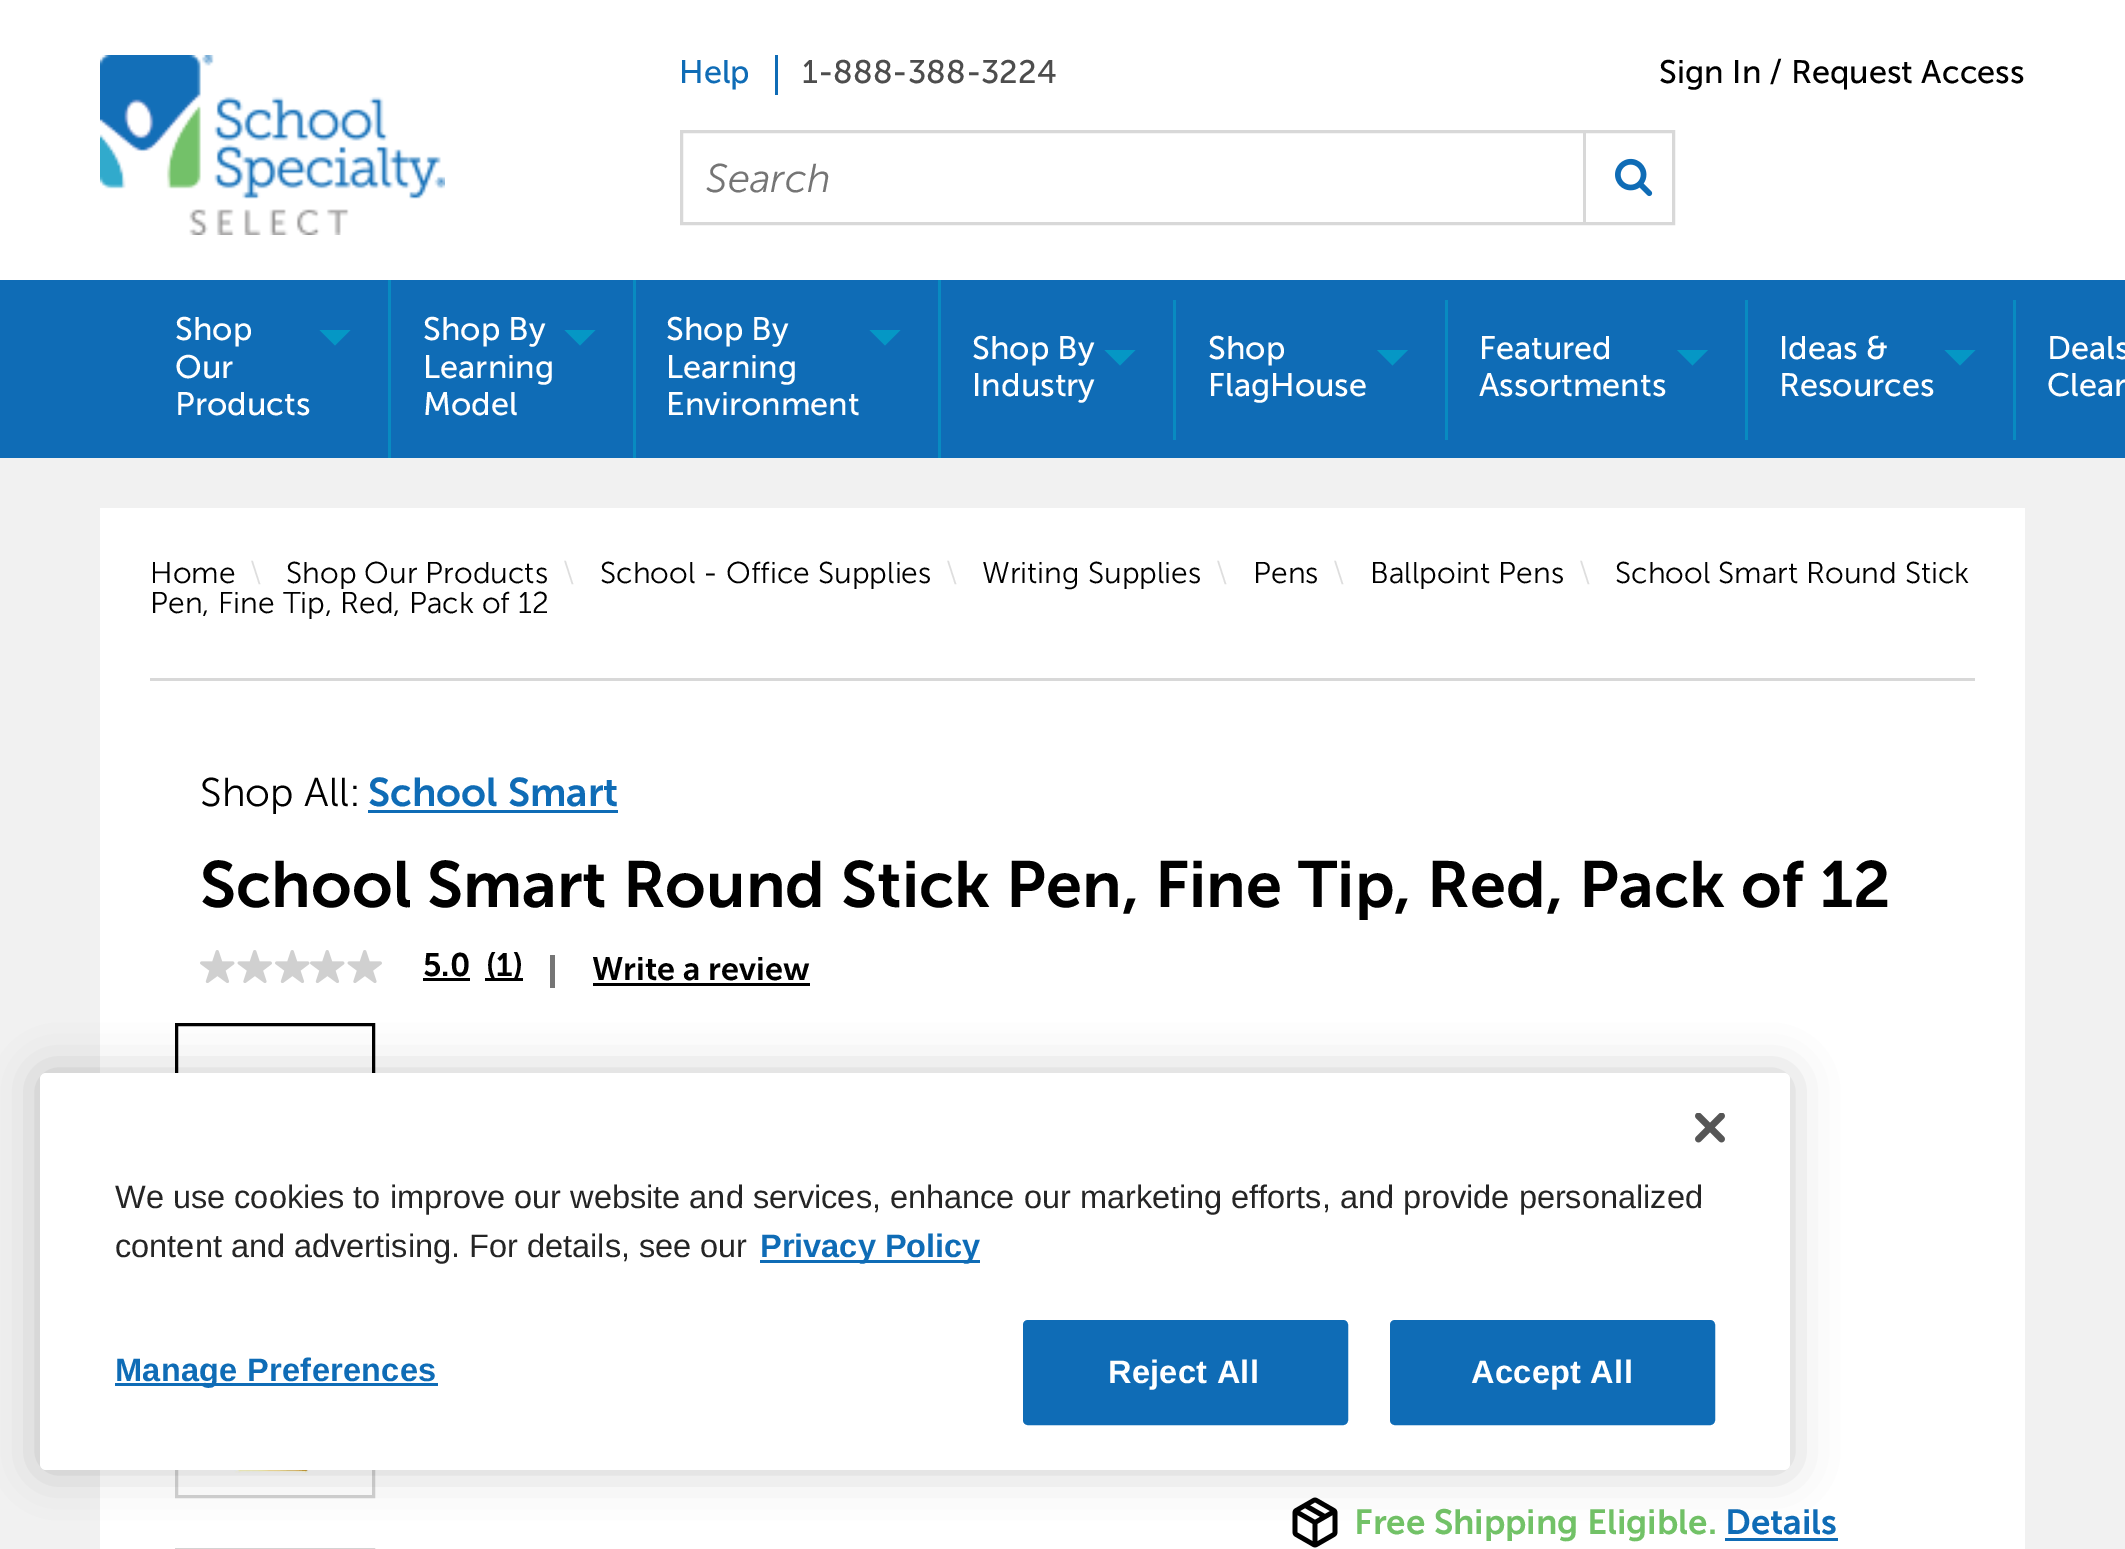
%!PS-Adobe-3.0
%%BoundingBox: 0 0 2125 1549
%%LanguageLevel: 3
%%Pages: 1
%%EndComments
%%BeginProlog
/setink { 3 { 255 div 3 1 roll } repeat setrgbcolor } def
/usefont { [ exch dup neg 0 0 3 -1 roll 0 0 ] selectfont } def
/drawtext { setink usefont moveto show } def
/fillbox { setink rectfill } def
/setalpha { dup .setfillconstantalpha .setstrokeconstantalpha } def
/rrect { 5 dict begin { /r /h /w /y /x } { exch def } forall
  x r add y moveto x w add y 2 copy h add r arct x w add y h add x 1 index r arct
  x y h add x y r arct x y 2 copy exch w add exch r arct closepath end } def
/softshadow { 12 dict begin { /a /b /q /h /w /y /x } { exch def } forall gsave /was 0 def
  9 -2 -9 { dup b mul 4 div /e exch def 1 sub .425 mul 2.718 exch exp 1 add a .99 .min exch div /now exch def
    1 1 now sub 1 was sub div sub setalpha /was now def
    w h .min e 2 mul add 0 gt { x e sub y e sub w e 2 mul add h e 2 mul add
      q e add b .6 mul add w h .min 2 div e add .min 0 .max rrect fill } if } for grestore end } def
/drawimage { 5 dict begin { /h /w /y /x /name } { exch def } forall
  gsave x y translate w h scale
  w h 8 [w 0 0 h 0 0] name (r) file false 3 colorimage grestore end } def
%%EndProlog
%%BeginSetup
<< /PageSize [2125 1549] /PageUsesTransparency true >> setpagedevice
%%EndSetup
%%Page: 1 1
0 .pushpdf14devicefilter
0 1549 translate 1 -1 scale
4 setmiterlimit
0 0 2125 1549 241 241 241 fillbox
0 0 2125 280 255 255 255 fillbox
(assets/img1.rgb) 100 55 345 180 drawimage
775 55 3 40 15 108 182 fillbox
(Help) 679 83 /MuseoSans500-Regular 32.5 15 108 182 drawtext
(1-888-388-3224) 802 83 /MuseoSans500-Regular 32.5 77 77 77 drawtext
(Sign In / Request Access) 1659 83 /MuseoSans500-Regular 32.5 0 0 0 drawtext
216 216 216 setink
3 setlinewidth
681.5 131.5 992 92 rectstroke
(Search) 706 192 /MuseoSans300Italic-Regular 40 117 117 117 drawtext
1583 133 3 90 216 216 216 fillbox
(assets/img2.rgb) 1615 158 38 39 drawimage
0 280 2125 178 15 108 182 fillbox
388 280 3 178 8 139 193 fillbox
(Shop) 175 340 /MuseoSans500-Regular 32.5 255 255 255 drawtext
5 151 197 setink
319.5 330 moveto 350.5 330 lineto 335 345.5 lineto closepath fill
(Our) 175 378 /MuseoSans500-Regular 32.5 255 255 255 drawtext
(Products) 175 415 /MuseoSans500-Regular 32.5 255 255 255 drawtext
633 280 3 178 8 139 193 fillbox
(Shop By) 423 340 /MuseoSans500-Regular 32.5 255 255 255 drawtext
5 151 197 setink
564.5 330 moveto 595.5 330 lineto 580 345.5 lineto closepath fill
(Learning) 423 378 /MuseoSans500-Regular 32.5 255 255 255 drawtext
(Model) 423 415 /MuseoSans500-Regular 32.5 255 255 255 drawtext
938 280 3 178 8 139 193 fillbox
(Shop By) 666 340 /MuseoSans500-Regular 32.5 255 255 255 drawtext
5 151 197 setink
869.5 330 moveto 900.5 330 lineto 885 345.5 lineto closepath fill
(Learning) 666 378 /MuseoSans500-Regular 32.5 255 255 255 drawtext
(Environment) 666 415 /MuseoSans500-Regular 32.5 255 255 255 drawtext
1173 300 3 140 8 139 193 fillbox
(Shop By) 972 359 /MuseoSans500-Regular 32.5 255 255 255 drawtext
5 151 197 setink
1104.5 350 moveto 1135.5 350 lineto 1120 365.5 lineto closepath fill
(Industry) 972 396 /MuseoSans500-Regular 32.5 255 255 255 drawtext
1445 300 3 140 8 139 193 fillbox
(Shop) 1208 359 /MuseoSans500-Regular 32.5 255 255 255 drawtext
5 151 197 setink
1377 350 moveto 1408 350 lineto 1392.5 365.5 lineto closepath fill
(FlagHouse) 1208 396 /MuseoSans500-Regular 32.5 255 255 255 drawtext
1745 300 3 140 8 139 193 fillbox
(Featured) 1479 359 /MuseoSans500-Regular 32.5 255 255 255 drawtext
5 151 197 setink
1677 350 moveto 1708 350 lineto 1692.5 365.5 lineto closepath fill
(Assortments) 1479 396 /MuseoSans500-Regular 32.5 255 255 255 drawtext
2013 300 3 140 8 139 193 fillbox
(Ideas &) 1779 359 /MuseoSans500-Regular 32.5 255 255 255 drawtext
5 151 197 setink
1944.5 350 moveto 1975.5 350 lineto 1960 365.5 lineto closepath fill
(Resources) 1779 396 /MuseoSans500-Regular 32.5 255 255 255 drawtext
(Deals) 2047 359 /MuseoSans500-Regular 32.5 255 255 255 drawtext
(Clear) 2047 396 /MuseoSans500-Regular 32.5 255 255 255 drawtext
100 508 1925 1041 255 255 255 fillbox
(Home) 150 583 /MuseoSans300-Regular 30 0 0 0 drawtext
(\\) 250 583 /MuseoSans300-Regular 30 222 222 222 drawtext
(Shop Our Products) 286 583 /MuseoSans300-Regular 30 0 0 0 drawtext
(\\) 563 583 /MuseoSans300-Regular 30 222 222 222 drawtext
(School - Office Supplies) 600 583 /MuseoSans300-Regular 30 0 0 0 drawtext
(\\) 946 583 /MuseoSans300-Regular 30 222 222 222 drawtext
(Writing Supplies) 982 583 /MuseoSans300-Regular 30 0 0 0 drawtext
(\\) 1216 583 /MuseoSans300-Regular 30 222 222 222 drawtext
(Pens) 1253 583 /MuseoSans300-Regular 30 0 0 0 drawtext
(\\) 1333 583 /MuseoSans300-Regular 30 222 222 222 drawtext
(Ballpoint Pens) 1370 583 /MuseoSans300-Regular 30 0 0 0 drawtext
(\\) 1579 583 /MuseoSans300-Regular 30 222 222 222 drawtext
(School Smart Round Stick) 1615 583 /MuseoSans300-Regular 30 0 0 0 drawtext
(Pen, Fine Tip, Red, Pack of 12) 150 613 /MuseoSans300-Regular 30 0 0 0 drawtext
150 678 1825 3 216 216 216 fillbox
(Shop All:) 200 806 /MuseoSans300-Regular 40 0 0 0 drawtext
(School Smart) 368 806 /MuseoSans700-Regular 40 15 108 182 drawtext
368 810 250 3 15 108 182 fillbox
(School Smart Round Stick Pen, Fine Tip, Red, Pack of 12) 200 907 /MuseoSans700-Regular 65 0 0 0 drawtext
(assets/img3.rgb) 200 950 35 33 drawimage
(assets/img4.rgb) 237 950 35 33 drawimage
(assets/img3.rgb) 275 950 35 33 drawimage
(assets/img3.rgb) 310 950 35 33 drawimage
(assets/img4.rgb) 347 950 35 33 drawimage
(5.0) 423 976 /MuseoSans700-Regular 32.5 0 0 0 drawtext
423 978 47 3 0 0 0 fillbox
485 978 38 3 0 0 0 fillbox
(\(1\)) 486 976 /MuseoSans700-Regular 32.5 0 0 0 drawtext
550 955 5 33 117 117 117 fillbox
(Write a review) 592 980 /MuseoSans700-Regular 32.5 0 0 0 drawtext
593 983 217 3 0 0 0 fillbox
176.5 1024.5 197 209 rectstroke
211 211 211 setink
176.5 1286.5 197 210 rectstroke
(assets/img5.rgb) 234 1470 75 3 drawimage
176.5 1549.5 197 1 rectstroke
(assets/img6.rgb) 1292 1497 46 51 drawimage
(Free Shipping Eligible.) 1354 1534 /MuseoSans700-Regular 35 114 194 103 drawtext
(Details) 1725 1534 /MuseoSans700-Regular 35 15 108 182 drawtext
1725 1538 113 3 15 108 182 fillbox
0 0 0 setink
40 1073 1750 397 6 22.5 0.2 softshadow
255 255 255 setink
40 1073 1750 397 6 rrect fill
(assets/img7.rgb) 1695 1113 30 30 drawimage
(We use cookies to improve our website and services, enhance our marketing efforts, and provide personalized) 115 1208 /LiberationSans-Regular 32.5 37 37 37 drawtext
(content and advertising. For details, see our) 115 1257 /LiberationSans-Regular 32.5 37 37 37 drawtext
760 1260 220 3 15 108 182 fillbox
(Privacy Policy) 760 1257 /LiberationSans-Bold 32.5 15 108 182 drawtext
115 1383 323 3 15 108 182 fillbox
115 1381 moveto 0.3 0 (Manage Preferences) ashow
1024.5 1321.5 322 102 3.5 rrect gsave fill grestore
stroke
255 255 255 setink
1108 1383 moveto 0.3 0 (Reject All) ashow
15 108 182 setink
1391.5 1321.5 322 102 3.5 rrect gsave fill grestore
stroke
255 255 255 setink
1471 1383 moveto 0.3 0 (Accept All) ashow
.poppdf14devicefilter showpage
%%EOF
